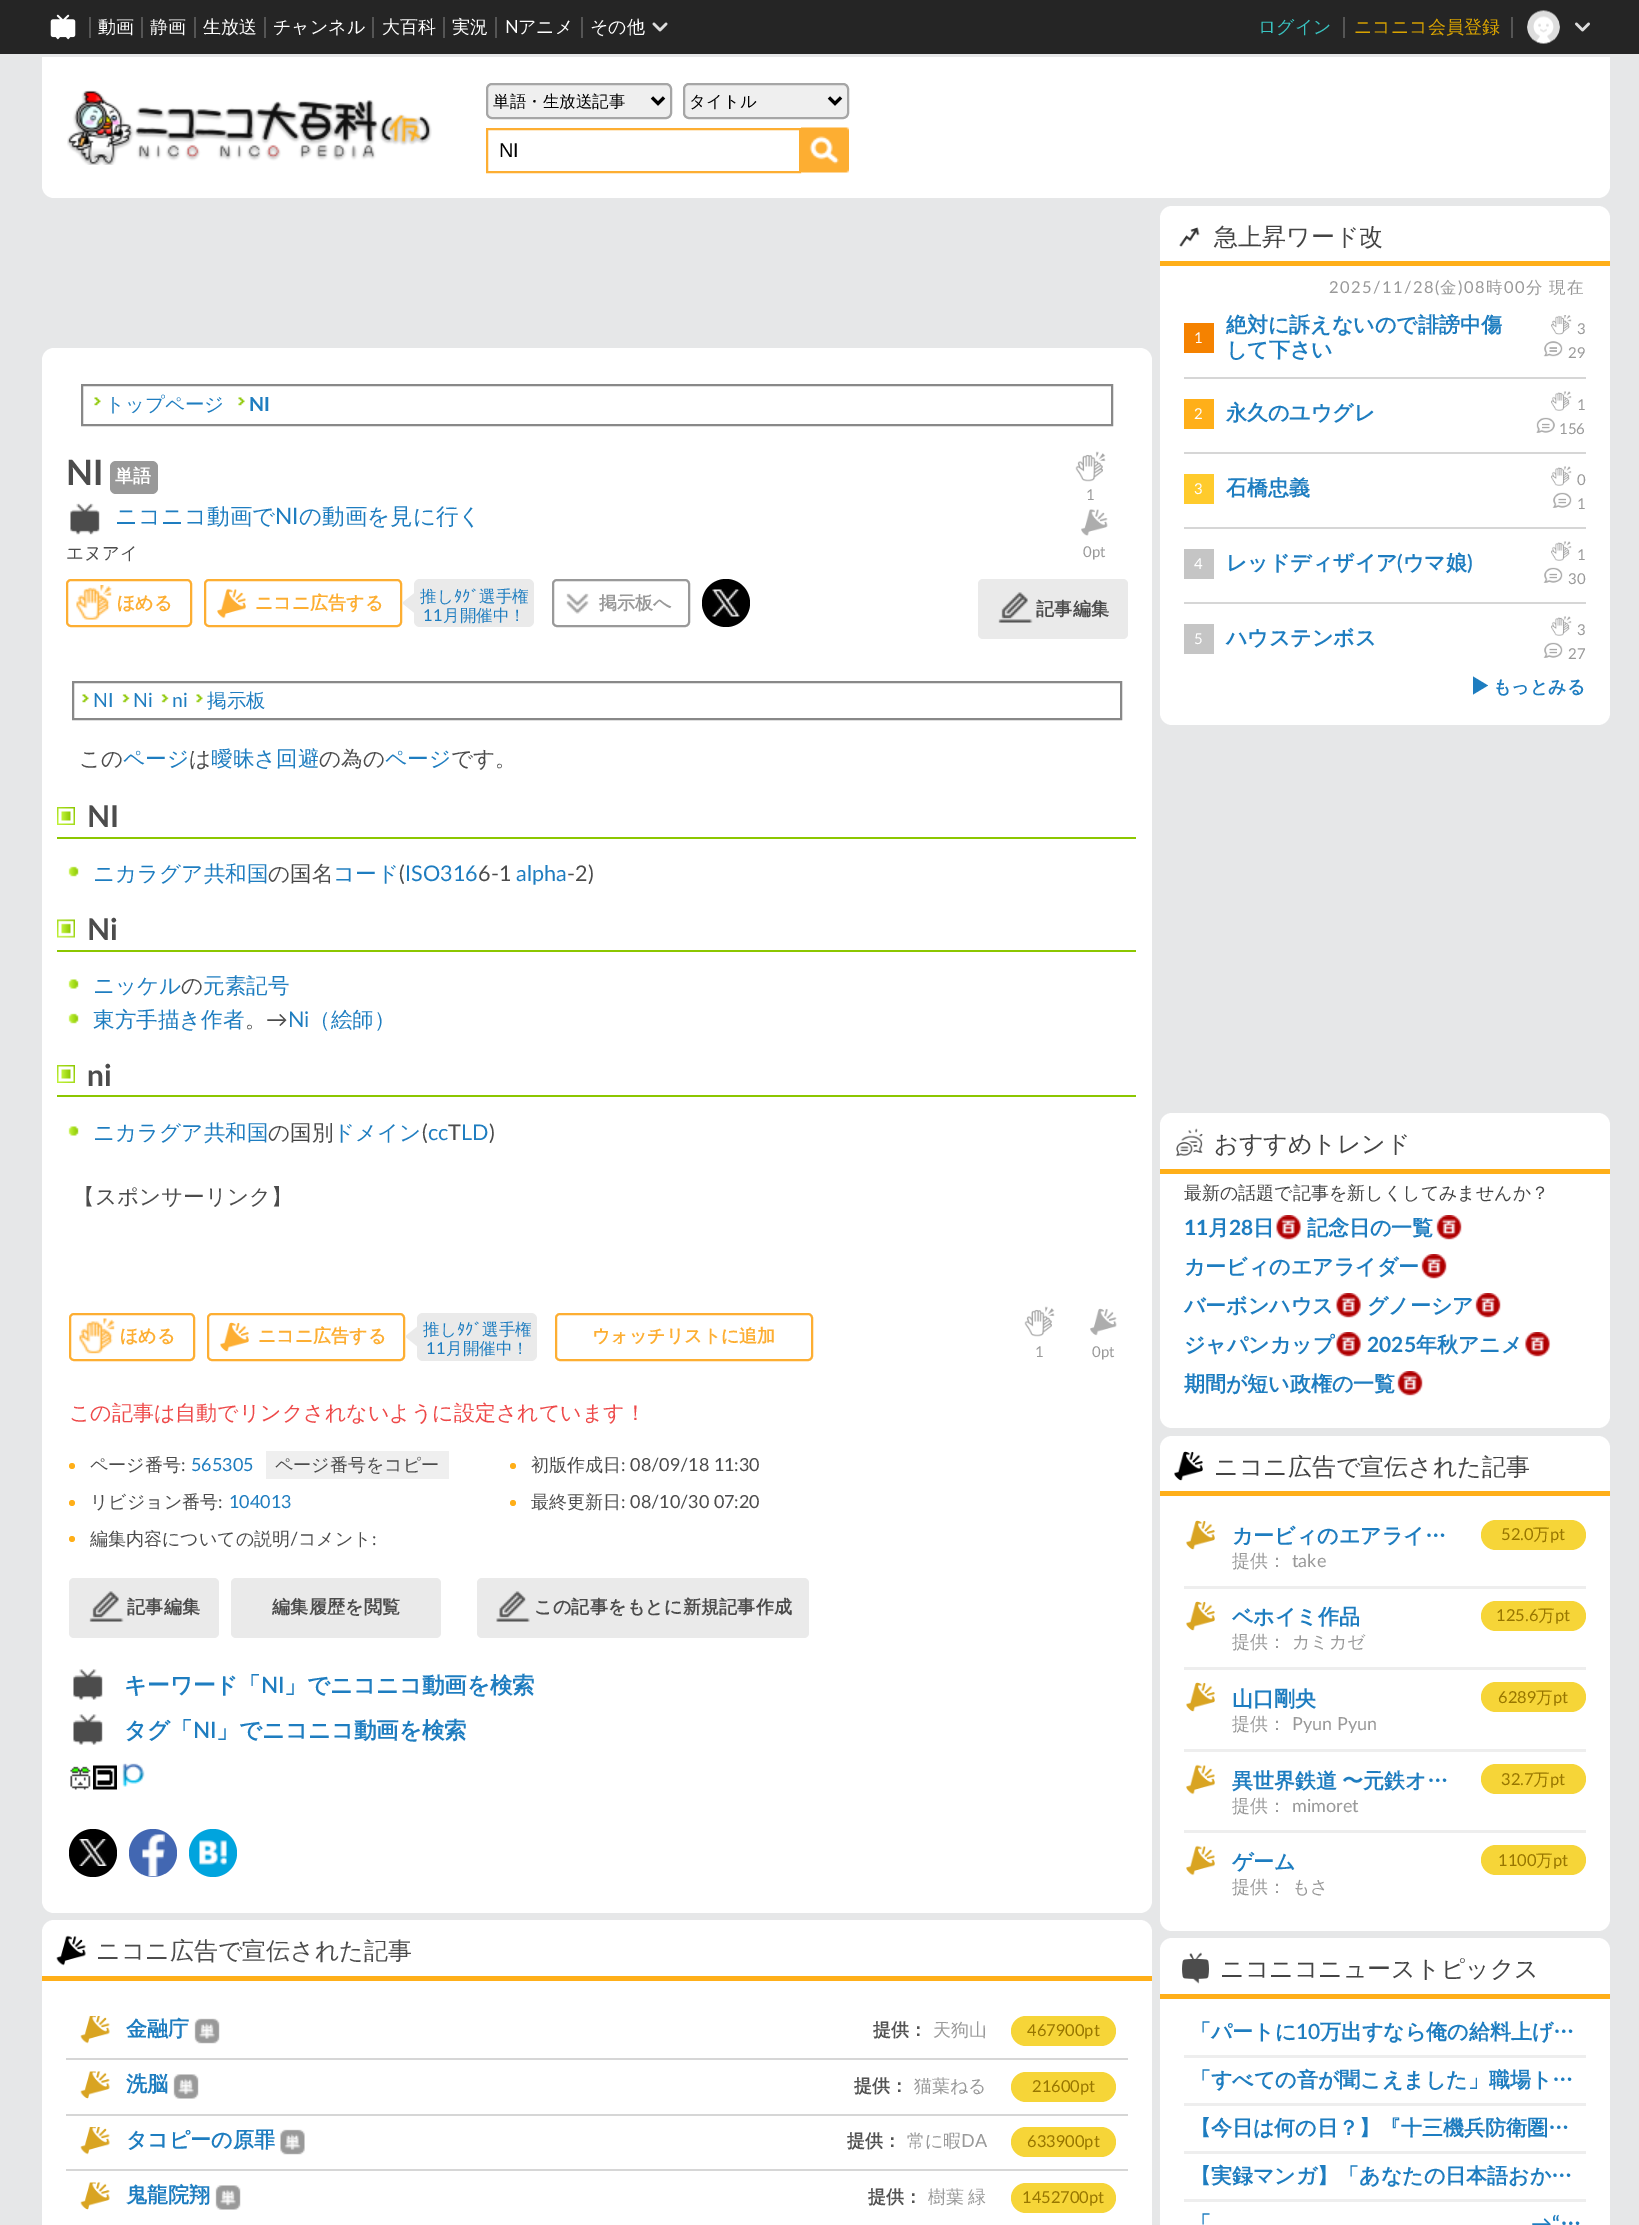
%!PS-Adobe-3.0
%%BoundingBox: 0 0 1639 2225
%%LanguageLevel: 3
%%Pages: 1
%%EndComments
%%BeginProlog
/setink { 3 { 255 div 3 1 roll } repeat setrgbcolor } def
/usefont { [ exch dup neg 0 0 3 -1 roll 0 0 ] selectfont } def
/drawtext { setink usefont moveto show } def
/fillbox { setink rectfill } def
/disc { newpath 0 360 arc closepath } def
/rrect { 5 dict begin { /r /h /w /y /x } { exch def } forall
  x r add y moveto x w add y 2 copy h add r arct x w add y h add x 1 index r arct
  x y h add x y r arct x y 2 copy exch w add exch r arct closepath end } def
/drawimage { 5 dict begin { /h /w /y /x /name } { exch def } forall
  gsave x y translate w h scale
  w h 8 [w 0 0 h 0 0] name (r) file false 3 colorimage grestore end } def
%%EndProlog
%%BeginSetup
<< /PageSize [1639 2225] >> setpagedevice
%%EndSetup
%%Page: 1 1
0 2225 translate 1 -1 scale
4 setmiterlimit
0 0 1639 2225 230 231 232 fillbox
0 0 1639 54 37 37 37 fillbox
(assets/img1.rgb) 50 14 26 26 drawimage
89 17 2 21 85 85 85 fillbox
(動画) 98 33 /WenQuanYiZenHei-Medium 18 255 255 255 drawtext
141 17 2 21 85 85 85 fillbox
(静画) 150 33 /WenQuanYiZenHei-Medium 18 255 255 255 drawtext
194 17 2 21 85 85 85 fillbox
(生放送) 203 33 /WenQuanYiZenHei-Medium 18 255 255 255 drawtext
264 17 2 21 85 85 85 fillbox
(チャンネル) 273 33 /WenQuanYiZenHei-Medium 18 255 255 255 drawtext
372 17 2 21 85 85 85 fillbox
(大百科) 382 33 /WenQuanYiZenHei-Medium 18 255 255 255 drawtext
443 17 2 21 85 85 85 fillbox
(実況) 452 33 /WenQuanYiZenHei-Medium 18 255 255 255 drawtext
495 17 2 21 85 85 85 fillbox
(N) 505 33 /Lato-Regular 18 255 255 255 drawtext
(アニメ) 518 33 /WenQuanYiZenHei-Medium 18 255 255 255 drawtext
581 17 2 21 85 85 85 fillbox
(その他) 590 33 /WenQuanYiZenHei-Medium 18 255 255 255 drawtext
(assets/img2.rgb) 652 22 16 10 drawimage
(ログイン) 1258 33 /WenQuanYiZenHei-Medium 18 57 196 193 drawtext
1343 17 2 21 85 85 85 fillbox
(ニコニコ会員登録) 1354 33 /WenQuanYiZenHei-Medium 18 217 163 0 drawtext
1511 17 2 21 85 85 85 fillbox
(assets/img3.rgb) 1527 10 33 34 drawimage
(assets/img4.rgb) 1575 22 15 10 drawimage
255 255 255 setink
42 57 moveto 1610 57 lineto 1610 186 lineto 1610 192.5 1604.5 198 1598 198 curveto 54 198 lineto 47.5 198 42 192.5 42 186 curveto closepath fill
(assets/img5.rgb) 67 90 365 75 drawimage
239 239 239 setink
487 84 184 34 5 rrect gsave fill grestore
166 166 166 setink
2 setlinewidth
stroke
0 0 0 setink
3 setlinewidth
652 97.5 moveto 658 103.5 lineto 664 97.5 lineto stroke
(単語・生放送記事) 493 107 /WenQuanYiZenHei-Medium 16.5 0 0 0 drawtext
239 239 239 setink
684 84 164 34 5 rrect gsave fill grestore
166 166 166 setink
2 setlinewidth
stroke
0 0 0 setink
3 setlinewidth
829 97.5 moveto 835 103.5 lineto 841 97.5 lineto stroke
(タイトル) 689 107 /WenQuanYiZenHei-Medium 16.5 0 0 0 drawtext
253 174 50 setink
2 setlinewidth
487 129 313 43 rectstroke
(NI) 499 157 /LiberationSans-Regular 20 0 0 0 drawtext
(assets/img6.rgb) 801 127 48 46 drawimage
255 255 255 setink
54 348 moveto 1140 348 lineto 1146.5 348 1152 353.5 1152 360 curveto 1152 567 lineto 42 567 lineto 42 360 lineto 42 353.5 47.5 348 54 348 curveto closepath fill
136 136 136 setink
82 385 1030 40 rectstroke
(assets/img7.rgb) 94 397 7 9 drawimage
(トップページ) 105 411 /WenQuanYiZenHei-Medium 19.5 30 125 192 drawtext
(assets/img7.rgb) 238 397 7 9 drawimage
(NI) 249 411 /Lato-Bold 19.5 30 125 192 drawtext
(NI) 66 485 /Lato-Bold 35 76 76 76 drawtext
153 153 153 setink
110 461 48 33 6 rrect fill
(単語) 115 482 /WenQuanYiZenHei-Bold 18 255 255 255 drawtext
(assets/img8.rgb) 70 503 30 32 drawimage
(ニコニコ動画で) 115 524 /WenQuanYiZenHei-Medium 22.5 30 125 192 drawtext
(NI) 275 524 /Lato-Regular 22.5 30 125 192 drawtext
(の動画を見に行く) 299 524 /WenQuanYiZenHei-Medium 22.5 30 125 192 drawtext
(エヌアイ) 66 559 /WenQuanYiZenHei-Medium 17.5 76 76 76 drawtext
(assets/img9.rgb) 1075 451 31 31 drawimage
(1) 1086 500 /Lato-Regular 15 153 153 153 drawtext
(assets/img10.rgb) 1081 509 27 27 drawimage
(0pt) 1083 557 /Lato-Regular 15 153 153 153 drawtext
255 255 255 setink
42 567 moveto 1152 567 lineto 1152 1901 lineto 1152 1907.5 1146.5 1913 1140 1913 curveto 54 1913 lineto 47.5 1913 42 1907.5 42 1901 curveto closepath fill
253 174 50 setink
67 580 124 46 4 rrect stroke
(assets/img11.rgb) 76 585 36 35 drawimage
(ほめる) 117 609 /WenQuanYiZenHei-Bold 18 253 174 50 drawtext
205 580 196 46 4 rrect stroke
(assets/img12.rgb) 217 588 29 31 drawimage
(ニコニ広告する) 255 609 /WenQuanYiZenHei-Bold 18 253 174 50 drawtext
234 234 234 setink
414 579 120 48 6 rrect fill
417 591 moveto 417 615 lineto 402 603 lineto closepath fill
(推し) 420 602 /WenQuanYiZenHei-Medium 16.5 30 125 192 drawtext
(ﾀｸﾞ) 454 602 /IPAPGothic-Regular 16.5 30 125 192 drawtext
(選手権) 479 602 /WenQuanYiZenHei-Medium 16.5 30 125 192 drawtext
(11) 423 621 /Lato-Regular 16.5 30 125 192 drawtext
(月開催中！) 443 621 /WenQuanYiZenHei-Medium 16.5 30 125 192 drawtext
153 153 153 setink
553 580 136 46 4 rrect stroke
(assets/img13.rgb) 566 593 23 21 drawimage
(掲示板へ) 599 609 /WenQuanYiZenHei-Bold 18 153 153 153 drawtext
0 0 0 setink
726 603 24 disc fill
(assets/img14.rgb) 712 589 28 28 drawimage
234 234 234 setink
978 579 150 60 5 rrect fill
(assets/img15.rgb) 998 592 35 31 drawimage
76 76 76 setink
1036 615 moveto 0.25 0 (記事編集) ashow
136 136 136 setink
73 682 1048 37 rectstroke
(assets/img7.rgb) 82 694 7 9 drawimage
(NI) 93 707 /Lato-Regular 19.5 30 125 192 drawtext
(assets/img16.rgb) 122 694 8 9 drawimage
(Ni) 133 707 /Lato-Regular 19.5 30 125 192 drawtext
(assets/img16.rgb) 161 694 8 9 drawimage
(ni) 172 707 /Lato-Regular 19.5 30 125 192 drawtext
(assets/img7.rgb) 196 694 7 9 drawimage
(掲示板) 207 707 /WenQuanYiZenHei-Medium 19.5 30 125 192 drawtext
(この) 79 766 /WenQuanYiZenHei-Medium 21.6 76 76 76 drawtext
(ページ) 123 766 /WenQuanYiZenHei-Medium 21.6 30 125 192 drawtext
(は) 189 766 /WenQuanYiZenHei-Medium 21.6 76 76 76 drawtext
(曖昧さ回避) 211 766 /WenQuanYiZenHei-Medium 21.6 30 125 192 drawtext
(の為の) 319 766 /WenQuanYiZenHei-Medium 21.6 76 76 76 drawtext
(ページ) 385 766 /WenQuanYiZenHei-Medium 21.6 30 125 192 drawtext
(です。) 451 766 /WenQuanYiZenHei-Medium 21.6 76 76 76 drawtext
(assets/img17.rgb) 57 807 18 18 drawimage
57 837 1079 2 140 199 0 fillbox
(NI) 87 827 /Lato-Bold 30 76 76 76 drawtext
(assets/img18.rgb) 68 866 11 11 drawimage
(ニカラグア共和国) 93 881 /WenQuanYiZenHei-Medium 21.6 30 125 192 drawtext
(の) 268 881 /WenQuanYiZenHei-Medium 21.6 76 76 76 drawtext
(国) 290 881 /WenQuanYiZenHei-Medium 21.6 68 68 68 drawtext
(名) 312 881 /WenQuanYiZenHei-Medium 21.6 76 76 76 drawtext
(コード) 333 881 /WenQuanYiZenHei-Medium 21.6 30 125 192 drawtext
(\() 399 881 /Lato-Regular 21.6 76 76 76 drawtext
(ISO316) 405 881 /Lato-Regular 21.6 30 125 192 drawtext
(6-1) 478 881 /Lato-Regular 21.6 76 76 76 drawtext
(alpha) 516 881 /Lato-Regular 21.6 30 125 192 drawtext
(-2\)) 567 881 /Lato-Regular 21.6 76 76 76 drawtext
(assets/img19.rgb) 57 919 18 19 drawimage
57 950 1079 2 140 199 0 fillbox
(Ni) 87 940 /Lato-Bold 30 76 76 76 drawtext
(assets/img20.rgb) 68 979 11 10 drawimage
(ニッケル) 93 993 /WenQuanYiZenHei-Medium 21.6 30 125 192 drawtext
(の) 181 993 /WenQuanYiZenHei-Medium 21.6 76 76 76 drawtext
(元素記号) 203 993 /WenQuanYiZenHei-Medium 21.6 30 125 192 drawtext
(assets/img18.rgb) 68 1013 11 11 drawimage
(東方手描き作者) 93 1027 /WenQuanYiZenHei-Medium 21.6 30 125 192 drawtext
(。) 245 1027 /WenQuanYiZenHei-Medium 21.6 76 76 76 drawtext
(→) 266 1027 /Lato-Regular 21.6 76 76 76 drawtext
(Ni) 288 1027 /Lato-Regular 21.6 30 125 192 drawtext
(（絵師）) 309 1027 /WenQuanYiZenHei-Medium 21.6 30 125 192 drawtext
(assets/img17.rgb) 57 1065 18 18 drawimage
57 1095 1079 2 140 199 0 fillbox
(ni) 87 1086 /Lato-Bold 30 76 76 76 drawtext
(assets/img20.rgb) 68 1126 11 10 drawimage
(ニカラグア共和国) 93 1140 /WenQuanYiZenHei-Medium 21.6 30 125 192 drawtext
(の) 268 1140 /WenQuanYiZenHei-Medium 21.6 76 76 76 drawtext
(国) 290 1140 /WenQuanYiZenHei-Medium 21.6 68 68 68 drawtext
(別) 312 1140 /WenQuanYiZenHei-Medium 21.6 76 76 76 drawtext
(ドメイン) 333 1140 /WenQuanYiZenHei-Medium 21.6 30 125 192 drawtext
(\() 422 1140 /Lato-Regular 21.6 76 76 76 drawtext
(cc) 428 1140 /Lato-Regular 21.6 30 125 192 drawtext
(T) 448 1140 /Lato-Regular 21.6 76 76 76 drawtext
(LD) 461 1140 /Lato-Regular 21.6 30 125 192 drawtext
(\)) 489 1140 /Lato-Regular 21.6 76 76 76 drawtext
(【スポンサーリンク】) 73 1204 /WenQuanYiZenHei-Medium 21.6 76 76 76 drawtext
253 174 50 setink
70 1314 124 46 4 rrect stroke
(assets/img21.rgb) 79 1318 36 36 drawimage
(ほめる) 120 1342 /WenQuanYiZenHei-Bold 18 253 174 50 drawtext
208 1314 196 46 4 rrect stroke
(assets/img22.rgb) 220 1322 29 30 drawimage
(ニコニ広告する) 258 1342 /WenQuanYiZenHei-Bold 18 253 174 50 drawtext
234 234 234 setink
417 1313 120 48 6 rrect fill
420 1324.5 moveto 420 1348.5 lineto 405 1336.5 lineto closepath fill
(推し) 423 1335 /WenQuanYiZenHei-Medium 16.5 30 125 192 drawtext
(ﾀｸﾞ) 457 1335 /IPAPGothic-Regular 16.5 30 125 192 drawtext
(選手権) 482 1335 /WenQuanYiZenHei-Medium 16.5 30 125 192 drawtext
(11) 426 1354 /Lato-Regular 16.5 30 125 192 drawtext
(月開催中！) 446 1354 /WenQuanYiZenHei-Medium 16.5 30 125 192 drawtext
253 174 50 setink
556 1314 256 46 4 rrect stroke
(ウォッチリストに追加) 592 1342 /WenQuanYiZenHei-Bold 18 253 174 50 drawtext
(assets/img23.rgb) 1024 1306 31 31 drawimage
(1) 1035 1357 /Lato-Regular 15 153 153 153 drawtext
(assets/img24.rgb) 1090 1308 27 28 drawimage
(0pt) 1092 1357 /Lato-Regular 15 153 153 153 drawtext
(この記事は自動でリンクされないように設定されています！) 69 1420 /WenQuanYiZenHei-Medium 21 238 73 73 drawtext
255 175 25 setink
72 1466 3 disc fill
(ページ番号) 90 1471 /WenQuanYiZenHei-Medium 18 76 76 76 drawtext
(:) 181 1471 /Lato-Regular 18 76 76 76 drawtext
(565305) 191 1471 /Lato-Regular 18 30 125 192 drawtext
266 1451 183 28 239 239 239 fillbox
(ページ番号をコピー) 275 1471 /WenQuanYiZenHei-Medium 18 76 76 76 drawtext
255 175 25 setink
513 1466 3 disc fill
(初版作成日) 531 1471 /WenQuanYiZenHei-Medium 18 76 76 76 drawtext
(: 08/09/18 11:30) 621 1471 /Lato-Regular 18 76 76 76 drawtext
255 175 25 setink
72 1503 3 disc fill
(リビジョン番号) 90 1508 /WenQuanYiZenHei-Medium 18 76 76 76 drawtext
(:) 218 1508 /Lato-Regular 18 76 76 76 drawtext
(104013) 229 1508 /Lato-Regular 18 30 125 192 drawtext
255 175 25 setink
513 1503 3 disc fill
(最終更新日) 531 1508 /WenQuanYiZenHei-Medium 18 76 76 76 drawtext
(: 08/10/30 07:20) 621 1508 /Lato-Regular 18 76 76 76 drawtext
255 175 25 setink
72 1539 3 disc fill
(編集内容についての説明) 90 1545 /WenQuanYiZenHei-Medium 18 76 76 76 drawtext
(/) 290 1545 /Lato-Regular 18 76 76 76 drawtext
(コメント) 298 1545 /WenQuanYiZenHei-Medium 18 76 76 76 drawtext
(:) 372 1545 /Lato-Regular 18 76 76 76 drawtext
234 234 234 setink
69 1578 150 60 5 rrect fill
(assets/img15.rgb) 89 1591 35 31 drawimage
/WenQuanYiZenHei-Bold 18 usefont
76 76 76 setink
127 1613 moveto 0.25 0 (記事編集) ashow
234 234 234 setink
231 1578 210 60 5 rrect fill
76 76 76 setink
272 1613 moveto 0.25 0 (編集履歴を閲覧) ashow
234 234 234 setink
477 1578 332 60 5 rrect fill
(assets/img25.rgb) 496 1591 34 31 drawimage
76 76 76 setink
534 1613 moveto 0.25 0 (この記事をもとに新規記事作成) ashow
(assets/img26.rgb) 73 1669 30 31 drawimage
(キーワード「) 124 1693 /WenQuanYiZenHei-Bold 22.5 30 125 192 drawtext
(NI) 261 1693 /Lato-SemiBold 22.5 30 125 192 drawtext
(」でニコニコ動画を検索) 284 1693 /WenQuanYiZenHei-Bold 22.5 30 125 192 drawtext
(assets/img26.rgb) 73 1714 30 31 drawimage
(タグ「) 124 1738 /WenQuanYiZenHei-Bold 22.5 30 125 192 drawtext
(NI) 193 1738 /Lato-SemiBold 22.5 30 125 192 drawtext
(」でニコニコ動画を検索) 216 1738 /WenQuanYiZenHei-Bold 22.5 30 125 192 drawtext
(assets/img27.rgb) 70 1766 21 24 drawimage
(assets/img28.rgb) 93 1765 24 25 drawimage
(assets/img29.rgb) 122 1763 23 24 drawimage
0 0 0 setink
93 1853 24 disc fill
(assets/img30.rgb) 79 1839 28 27 drawimage
66 103 178 setink
153 1853 24 disc fill
(assets/img31.rgb) 142 1834 23 43 drawimage
0 164 222 setink
213 1853 24 disc fill
(assets/img32.rgb) 199 1840 28 25 drawimage
255 255 255 setink
42 1920 1110 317 12 rrect fill
42 1976 1110 5 255 175 25 fillbox
(assets/img33.rgb) 56 1935 30 31 drawimage
(ニコニ広告で宣伝された記事) 96 1959 /WenQuanYiZenHei-Medium 24 76 76 76 drawtext
66 2058 1062 2 214 214 214 fillbox
(assets/img34.rgb) 80 2016 30 28 drawimage
(金融庁) 126 2036 /WenQuanYiZenHei-Bold 21 30 125 192 drawtext
(assets/img35.rgb) 194 2018 26 26 drawimage
(提供：) 873 2036 /WenQuanYiZenHei-Bold 18 82 82 82 drawtext
(天狗山) 933 2036 /WenQuanYiZenHei-Medium 18 153 153 153 drawtext
246 213 56 setink
1011 2016 105 30 15 rrect fill
(467900pt) 1027 2036 /Lato-Regular 16.5 152 118 0 drawtext
66 2114 1062 2 214 214 214 fillbox
(assets/img36.rgb) 80 2071 30 28 drawimage
(洗脳) 126 2091 /WenQuanYiZenHei-Bold 21 30 125 192 drawtext
(assets/img37.rgb) 173 2074 26 25 drawimage
(提供：) 854 2092 /WenQuanYiZenHei-Bold 18 82 82 82 drawtext
(猫葉ねる) 914 2092 /WenQuanYiZenHei-Medium 18 153 153 153 drawtext
246 213 56 setink
1011 2072 105 30 15 rrect fill
(21600pt) 1032 2092 /Lato-Regular 16.5 152 118 0 drawtext
66 2169 1062 2 214 214 214 fillbox
(assets/img38.rgb) 80 2127 30 28 drawimage
(タコピーの原罪) 126 2147 /WenQuanYiZenHei-Bold 21 30 125 192 drawtext
(assets/img39.rgb) 280 2129 25 26 drawimage
(提供：) 847 2147 /WenQuanYiZenHei-Bold 18 82 82 82 drawtext
(常に暇) 907 2147 /WenQuanYiZenHei-Medium 18 153 153 153 drawtext
(DA) 961 2147 /Lato-Regular 18 153 153 153 drawtext
246 213 56 setink
1011 2127 105 30 15 rrect fill
(633900pt) 1027 2147 /Lato-Regular 16.5 152 118 0 drawtext
(assets/img40.rgb) 80 2182 30 28 drawimage
(鬼龍院翔) 126 2202 /WenQuanYiZenHei-Bold 21 30 125 192 drawtext
(assets/img37.rgb) 215 2185 26 25 drawimage
(提供：) 868 2203 /WenQuanYiZenHei-Bold 18 82 82 82 drawtext
/WenQuanYiZenHei-Medium 18 usefont
153 153 153 setink
928 2203 moveto -1 0 32 (樹葉 緑) widthshow
246 213 56 setink
1011 2183 105 30 15 rrect fill
(1452700pt) 1022 2203 /Lato-Regular 16.5 152 118 0 drawtext
255 255 255 setink
1160 206 450 519 12 rrect fill
1160 261 450 5 255 175 25 fillbox
(assets/img41.rgb) 1179 227 21 20 drawimage
(急上昇ワード改) 1214 245 /WenQuanYiZenHei-Medium 24 68 68 68 drawtext
/Lato-Regular 16.5 usefont
153 153 153 setink
1329 293 moveto 1.5 0 (2025/11/28\() ashow
/WenQuanYiZenHei-Medium 16.5 usefont
1440 293 moveto 1.5 0 (金) ashow
/Lato-Regular 16.5 usefont
1458 293 moveto 1.5 0 (\)08) ashow
/WenQuanYiZenHei-Medium 16.5 usefont
1486 293 moveto 1.5 0 (時) ashow
/Lato-Regular 16.5 usefont
1504 293 moveto 1.5 0 (00) ashow
/WenQuanYiZenHei-Medium 16.5 usefont
1526 293 moveto -1 0 32 1.5 0 (分 現在) awidthshow
1184 377 402 2 214 214 214 fillbox
1184 323 30 30 245 130 0 fillbox
(1) 1194 343 /Lato-Regular 15 255 255 255 drawtext
(絶対に訴えないので誹謗中傷) 1226 332 /WenQuanYiZenHei-Bold 21 30 125 192 drawtext
(して下さい) 1226 357 /WenQuanYiZenHei-Bold 21 30 125 192 drawtext
(assets/img42.rgb) 1551 315 21 20 drawimage
(3) 1577 334 /Lato-Regular 15 153 153 153 drawtext
(assets/img43.rgb) 1543 341 20 16 drawimage
(29) 1568 358 /Lato-Regular 15 153 153 153 drawtext
1184 452 402 2 214 214 214 fillbox
1184 399 30 30 255 175 25 fillbox
(2) 1194 419 /Lato-Regular 15 255 255 255 drawtext
(永久のユウグレ) 1226 420 /WenQuanYiZenHei-Bold 21 30 125 192 drawtext
(assets/img44.rgb) 1551 391 21 20 drawimage
(1) 1577 410 /Lato-Regular 15 153 153 153 drawtext
(assets/img45.rgb) 1536 417 19 16 drawimage
(156) 1559 434 /Lato-Regular 15 153 153 153 drawtext
1184 527 402 2 214 214 214 fillbox
1184 474 30 30 255 203 44 fillbox
(3) 1194 494 /Lato-Regular 15 255 255 255 drawtext
(石橋忠義) 1226 495 /WenQuanYiZenHei-Bold 21 30 125 192 drawtext
(assets/img44.rgb) 1551 466 21 20 drawimage
(0) 1577 485 /Lato-Regular 15 153 153 153 drawtext
(assets/img46.rgb) 1552 492 20 16 drawimage
(1) 1577 509 /Lato-Regular 15 153 153 153 drawtext
1184 602 402 2 214 214 214 fillbox
1184 549 30 30 197 197 197 fillbox
(4) 1194 569 /Lato-Regular 15 255 255 255 drawtext
(レッドディザイア) 1226 570 /WenQuanYiZenHei-Bold 21 30 125 192 drawtext
(\() 1397 570 /Lato-SemiBold 21 30 125 192 drawtext
(ウマ娘) 1403 570 /WenQuanYiZenHei-Bold 21 30 125 192 drawtext
(\)) 1467 570 /Lato-SemiBold 21 30 125 192 drawtext
(assets/img44.rgb) 1551 541 21 20 drawimage
(1) 1577 560 /Lato-Regular 15 153 153 153 drawtext
(assets/img46.rgb) 1543 567 20 16 drawimage
(30) 1568 584 /Lato-Regular 15 153 153 153 drawtext
1184 624 30 30 197 197 197 fillbox
(5) 1194 644 /Lato-Regular 15 255 255 255 drawtext
(ハウステンボス) 1226 645 /WenQuanYiZenHei-Bold 21 30 125 192 drawtext
(assets/img44.rgb) 1551 616 21 20 drawimage
(3) 1577 635 /Lato-Regular 15 153 153 153 drawtext
(assets/img46.rgb) 1543 642 20 16 drawimage
(27) 1568 659 /Lato-Regular 15 153 153 153 drawtext
30 125 192 setink
1473 694.5 moveto 1473 676.5 lineto 1488 685.5 lineto closepath fill
(もっとみる) 1493 693 /WenQuanYiZenHei-Bold 18 30 125 192 drawtext
255 255 255 setink
1160 1113 450 315 12 rrect fill
1160 1169 450 5 255 175 25 fillbox
(assets/img47.rgb) 1176 1128 27 29 drawimage
(おすすめトレンド) 1214 1152 /WenQuanYiZenHei-Medium 24 68 68 68 drawtext
(最新の話題で記事を新しくしてみませんか？) 1184 1199 /WenQuanYiZenHei-Medium 18 68 68 68 drawtext
(11) 1184 1235 /Lato-Bold 21 30 125 192 drawtext
(月) 1208 1235 /WenQuanYiZenHei-Bold 21 30 125 192 drawtext
(28) 1229 1235 /Lato-Bold 21 30 125 192 drawtext
(日) 1253 1235 /WenQuanYiZenHei-Bold 21 30 125 192 drawtext
(assets/img48.rgb) 1275 1215 27 25 drawimage
(記念日の一覧) 1307 1235 /WenQuanYiZenHei-Bold 21 30 125 192 drawtext
(assets/img49.rgb) 1436 1215 26 25 drawimage
(カービィのエアライダー) 1184 1274 /WenQuanYiZenHei-Bold 21 30 125 192 drawtext
(assets/img49.rgb) 1421 1254 26 25 drawimage
(バーボンハウス) 1184 1313 /WenQuanYiZenHei-Bold 21 30 125 192 drawtext
(assets/img50.rgb) 1335 1293 27 25 drawimage
(グノーシア) 1367 1313 /WenQuanYiZenHei-Bold 21 30 125 192 drawtext
(assets/img49.rgb) 1475 1293 26 25 drawimage
(ジャパンカップ) 1184 1352 /WenQuanYiZenHei-Bold 21 30 125 192 drawtext
(assets/img50.rgb) 1335 1332 27 25 drawimage
(2025) 1367 1352 /Lato-Bold 21 30 125 192 drawtext
(年秋アニメ) 1416 1352 /WenQuanYiZenHei-Bold 21 30 125 192 drawtext
(assets/img51.rgb) 1524 1332 27 25 drawimage
(期間が短い政権の一覧) 1184 1391 /WenQuanYiZenHei-Bold 21 30 125 192 drawtext
(assets/img49.rgb) 1397 1371 26 25 drawimage
255 255 255 setink
1160 1436 450 495 12 rrect fill
1160 1491 450 5 255 175 25 fillbox
(assets/img52.rgb) 1174 1451 29 30 drawimage
(ニコニ広告で宣伝された記事) 1214 1475 /WenQuanYiZenHei-Medium 24 68 68 68 drawtext
1184 1586 402 3 238 238 238 fillbox
(assets/img53.rgb) 1186 1520 29 30 drawimage
(カービィのエアライ…) 1232 1543 /WenQuanYiZenHei-Bold 21 30 125 192 drawtext
(提供：) 1232 1567 /WenQuanYiZenHei-Medium 18 153 153 153 drawtext
(take) 1292 1567 /Lato-Regular 18 153 153 153 drawtext
246 213 56 setink
1481 1520 105 30 15 rrect fill
(52.0) 1501 1540 /Lato-Regular 16.5 152 118 0 drawtext
(万) 1533 1540 /WenQuanYiZenHei-Medium 16.5 152 118 0 drawtext
(pt) 1550 1540 /Lato-Regular 16.5 152 118 0 drawtext
1184 1667 402 3 238 238 238 fillbox
(assets/img54.rgb) 1186 1601 29 30 drawimage
(ベホイミ作品) 1232 1624 /WenQuanYiZenHei-Bold 21 30 125 192 drawtext
(提供：) 1232 1648 /WenQuanYiZenHei-Medium 18 153 153 153 drawtext
(カミカゼ) 1292 1648 /WenQuanYiZenHei-Medium 18 153 153 153 drawtext
246 213 56 setink
1481 1601 105 30 15 rrect fill
(125.6) 1496 1621 /Lato-Regular 16.5 152 118 0 drawtext
(万) 1538 1621 /WenQuanYiZenHei-Medium 16.5 152 118 0 drawtext
(pt) 1555 1621 /Lato-Regular 16.5 152 118 0 drawtext
1184 1749 402 3 238 238 238 fillbox
(assets/img54.rgb) 1186 1682 29 30 drawimage
(山口剛央) 1232 1706 /WenQuanYiZenHei-Bold 21 30 125 192 drawtext
(提供：) 1232 1730 /WenQuanYiZenHei-Medium 18 153 153 153 drawtext
(Pyun Pyun) 1292 1730 /Lato-Regular 18 153 153 153 drawtext
246 213 56 setink
1481 1682 105 30 15 rrect fill
(6289) 1498 1703 /Lato-Regular 16.5 152 118 0 drawtext
(万) 1536 1703 /WenQuanYiZenHei-Medium 16.5 152 118 0 drawtext
(pt) 1553 1703 /Lato-Regular 16.5 152 118 0 drawtext
1184 1830 402 3 238 238 238 fillbox
(assets/img55.rgb) 1186 1764 29 31 drawimage
/WenQuanYiZenHei-Bold 21 usefont
30 125 192 setink
1232 1788 moveto -1 0 32 (異世界鉄道 〜元鉄オ…) widthshow
(提供：) 1232 1812 /WenQuanYiZenHei-Medium 18 153 153 153 drawtext
(mimoret) 1292 1812 /Lato-Regular 18 153 153 153 drawtext
246 213 56 setink
1481 1764 105 30 15 rrect fill
(32.7) 1501 1785 /Lato-Regular 16.5 152 118 0 drawtext
(万) 1533 1785 /WenQuanYiZenHei-Medium 16.5 152 118 0 drawtext
(pt) 1550 1785 /Lato-Regular 16.5 152 118 0 drawtext
(assets/img55.rgb) 1186 1845 29 31 drawimage
(ゲーム) 1232 1869 /WenQuanYiZenHei-Bold 21 30 125 192 drawtext
(提供：) 1232 1893 /WenQuanYiZenHei-Medium 18 153 153 153 drawtext
(もさ) 1292 1893 /WenQuanYiZenHei-Medium 18 153 153 153 drawtext
246 213 56 setink
1481 1845 105 30 15 rrect fill
(1100) 1498 1866 /Lato-Regular 16.5 152 118 0 drawtext
(万) 1536 1866 /WenQuanYiZenHei-Medium 16.5 152 118 0 drawtext
(pt) 1553 1866 /Lato-Regular 16.5 152 118 0 drawtext
255 255 255 setink
1160 1938 450 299 12 rrect fill
1160 1994 450 5 255 175 25 fillbox
(assets/img56.rgb) 1182 1952 27 32 drawimage
(ニコニコニューストピックス) 1220 1977 /WenQuanYiZenHei-Medium 24 68 68 68 drawtext
1184 2055 402 3 238 238 238 fillbox
(「パートに) 1190 2039 /WenQuanYiZenHei-Bold 21 30 125 192 drawtext
(10) 1296 2039 /Lato-SemiBold 21 30 125 192 drawtext
(万出すなら俺の給料上げ…) 1320 2039 /WenQuanYiZenHei-Bold 21 30 125 192 drawtext
1184 2103 402 3 238 238 238 fillbox
(「すべての音が聞こえました」職場ト…) 1190 2087 /WenQuanYiZenHei-Bold 21 30 125 192 drawtext
1184 2151 402 3 238 238 238 fillbox
(【今日は何の日？】『十三機兵防衛圏…) 1190 2135 /WenQuanYiZenHei-Bold 21 30 125 192 drawtext
1184 2199 402 3 238 238 238 fillbox
(【実録マンガ】「あなたの日本語おか…) 1190 2183 /WenQuanYiZenHei-Bold 21 30 125 192 drawtext
(「) 1190 2231 /WenQuanYiZenHei-Bold 21 30 125 192 drawtext
(→“) 1531 2231 /Lato-SemiBold 21 30 125 192 drawtext
(…) 1560 2231 /WenQuanYiZenHei-Bold 21 30 125 192 drawtext
showpage
%%EOF
